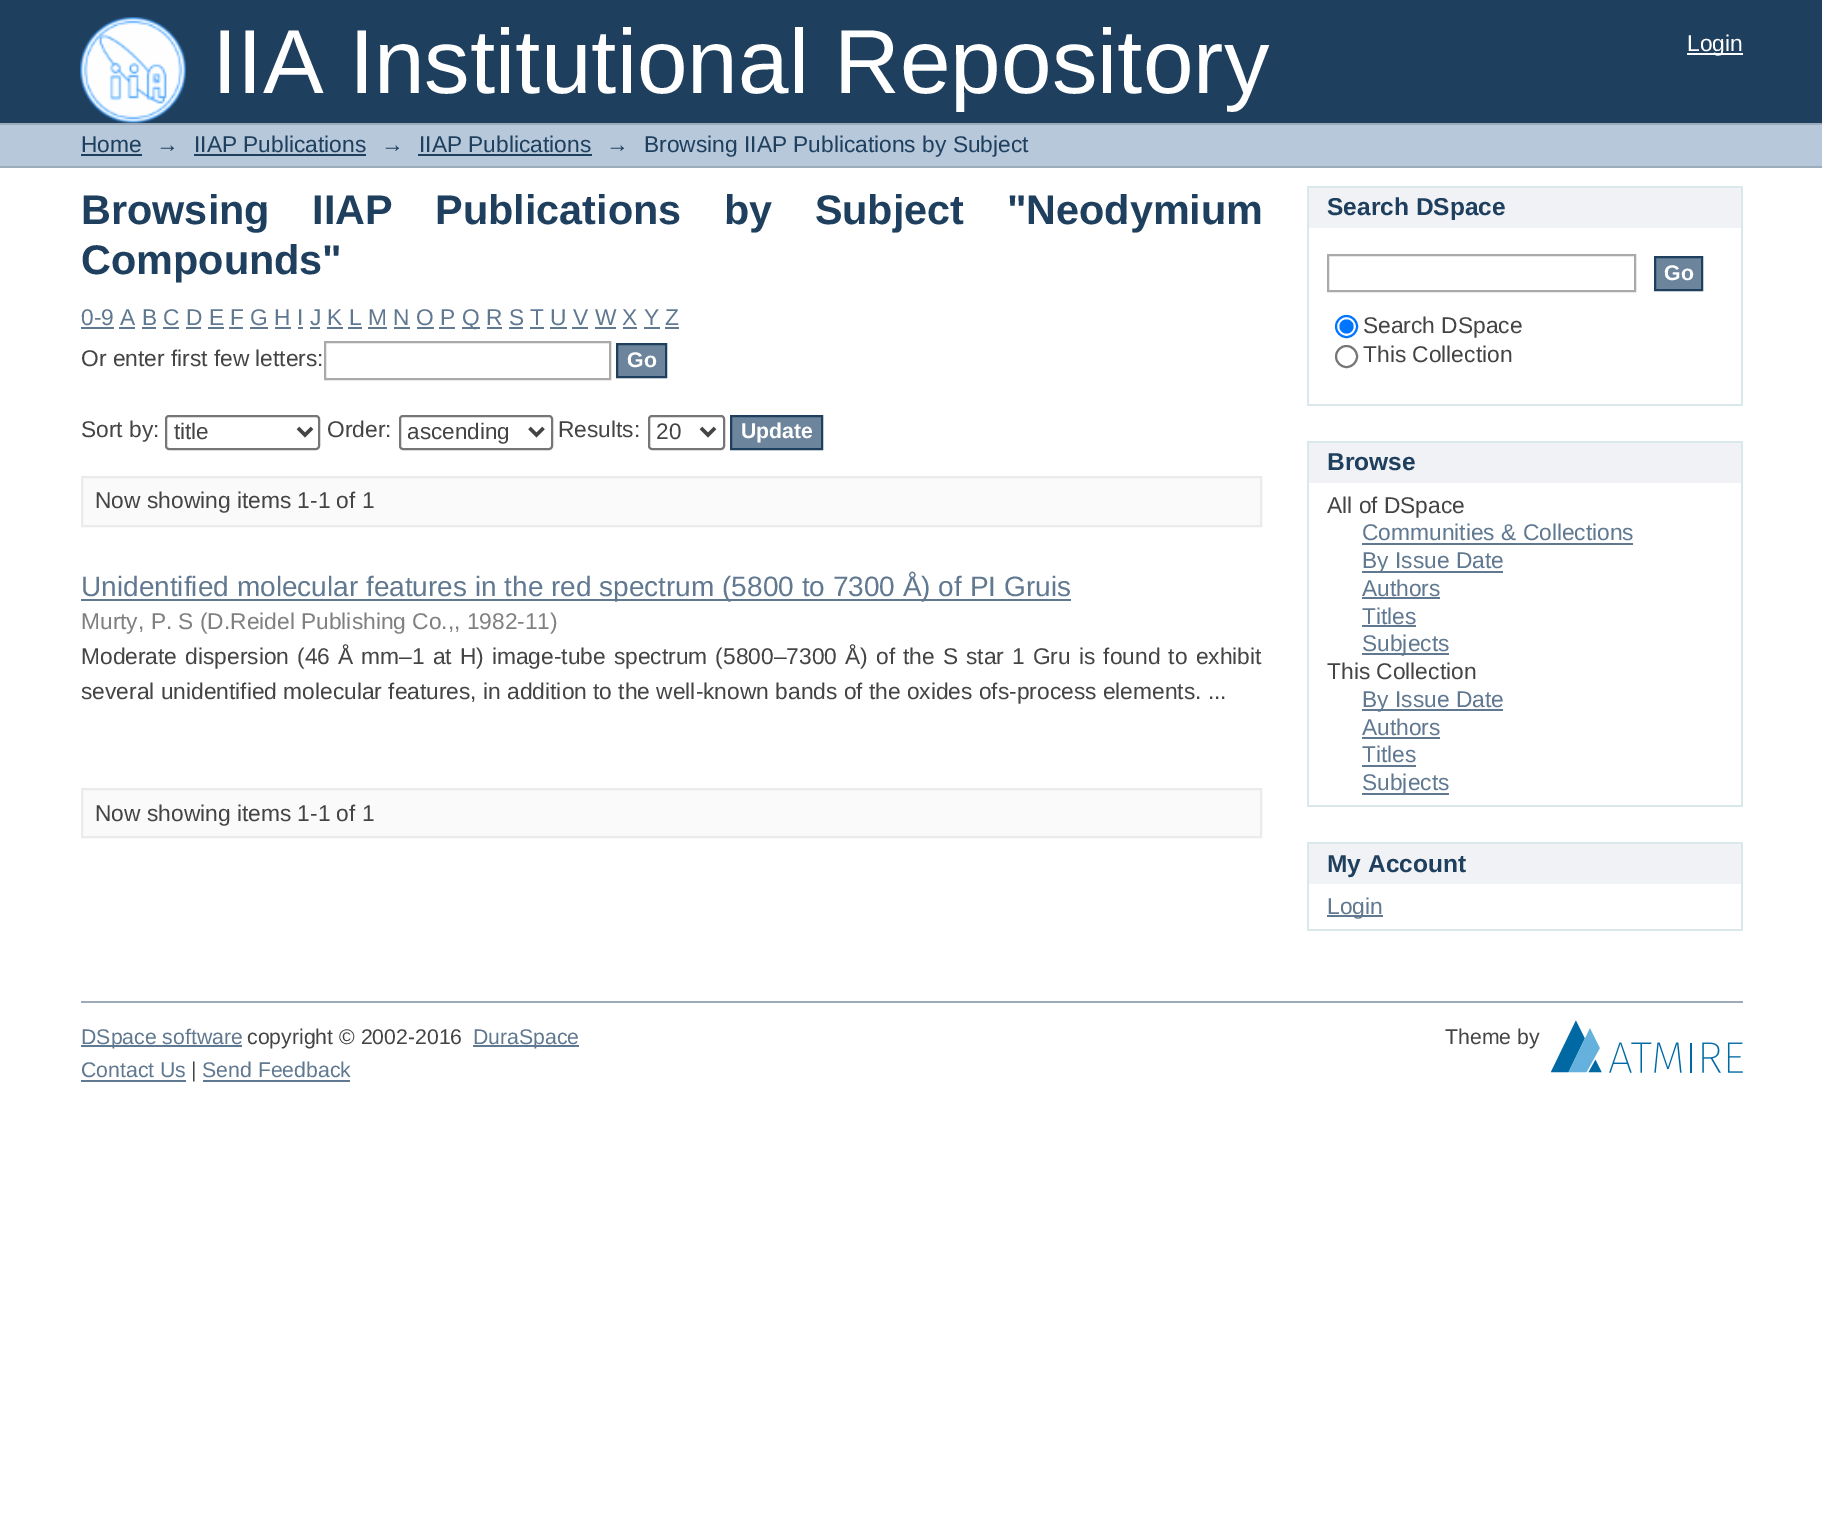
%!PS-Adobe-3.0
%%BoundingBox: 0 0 1822 1537
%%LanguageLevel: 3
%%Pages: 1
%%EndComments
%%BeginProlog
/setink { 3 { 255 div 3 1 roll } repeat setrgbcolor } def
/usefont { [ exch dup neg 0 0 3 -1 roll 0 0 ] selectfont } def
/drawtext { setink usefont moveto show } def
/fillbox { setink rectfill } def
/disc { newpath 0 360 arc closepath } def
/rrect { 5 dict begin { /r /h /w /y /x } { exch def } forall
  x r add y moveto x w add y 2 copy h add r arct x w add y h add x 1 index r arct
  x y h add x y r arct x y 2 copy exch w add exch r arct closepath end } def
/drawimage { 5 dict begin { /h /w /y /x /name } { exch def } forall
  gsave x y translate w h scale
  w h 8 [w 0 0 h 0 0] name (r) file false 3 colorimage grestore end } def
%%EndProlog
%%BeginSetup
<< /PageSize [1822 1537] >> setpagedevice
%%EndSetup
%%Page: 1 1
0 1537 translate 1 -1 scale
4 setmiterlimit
0 0 1822 1537 255 255 255 fillbox
0 0 1822 123 31 63 94 fillbox
(assets/img1.rgb) 80 17 106 106 drawimage
(IIA Institutional Repository) 212 93 /LiberationSans-Regular 91 255 255 255 drawtext
1687 53 56 2 255 255 255 fillbox
(Login) 1687 51 /LiberationSans-Regular 22.75 255 255 255 drawtext
0 125 1822 41 182 200 217 fillbox
0 123 1822 2 156 172 186 fillbox
0 166 1822 2 156 172 186 fillbox
(Home) 81 152 /LiberationSans-Regular 22.75 31 63 94 drawtext
81 154 61 2 31 63 94 fillbox
(→) 156 152 /LiberationSans-Regular 22.75 31 63 94 drawtext
(IIAP Publications) 194 152 /LiberationSans-Regular 22.75 31 63 94 drawtext
194 154 172 2 31 63 94 fillbox
(→) 381 152 /LiberationSans-Regular 22.75 31 63 94 drawtext
(IIAP Publications) 419 152 /LiberationSans-Regular 22.75 31 63 94 drawtext
418 154 174 2 31 63 94 fillbox
(→) 606 152 /LiberationSans-Regular 22.75 31 63 94 drawtext
(Browsing IIAP Publications by Subject) 644 152 /LiberationSans-Regular 22.75 31 63 94 drawtext
/LiberationSans-Bold 41.4 usefont
81 224 moveto 31 0 32 (Browsing IIAP Publications by Subject "Neodymium) widthshow
(Compounds") 81 274 /LiberationSans-Bold 41.4 31 63 94 drawtext
(0-9 A B C D E F G H I J K L M N O P) 81 325 /LiberationSans-Regular 22.75 96 120 144 drawtext
81 327 33 2 96 120 144 fillbox
462 327 18 2 96 120 144 fillbox
(Q R S T U V W X Y Z) 462 325 /LiberationSans-Regular 22.75 96 120 144 drawtext
119 327 16 2 96 120 144 fillbox
142 327 14 2 96 120 144 fillbox
163 327 16 2 96 120 144 fillbox
186 327 15 2 96 120 144 fillbox
208 327 16 2 96 120 144 fillbox
229 327 14 2 96 120 144 fillbox
250 327 18 2 96 120 144 fillbox
275 327 16 2 96 120 144 fillbox
298 327 5 2 96 120 144 fillbox
310 327 10 2 96 120 144 fillbox
327 327 16 2 96 120 144 fillbox
348 327 14 2 96 120 144 fillbox
368 327 19 2 96 120 144 fillbox
394 327 16 2 96 120 144 fillbox
417 327 17 2 96 120 144 fillbox
439 327 16 2 96 120 144 fillbox
487 327 15 2 96 120 144 fillbox
509 327 14 2 96 120 144 fillbox
530 327 14 2 96 120 144 fillbox
550 327 17 2 96 120 144 fillbox
572 327 16 2 96 120 144 fillbox
595 327 21 2 96 120 144 fillbox
623 327 14 2 96 120 144 fillbox
644 327 16 2 96 120 144 fillbox
665 327 14 2 96 120 144 fillbox
(Or enter first few letters:) 81 366 /LiberationSans-Regular 22.75 68 68 68 drawtext
170 170 170 setink
2 setlinewidth
325 342 285 37 rectstroke
109 133 156 setink
617 344 moveto 666 344 lineto 666 377 lineto 617 377 lineto closepath gsave fill grestore
31 63 94 setink
stroke
(Go) 627 367 /LiberationSans-Bold 21.25 255 255 255 drawtext
(Sort by:) 81 437 /LiberationSans-Regular 22.75 68 68 68 drawtext
118 118 118 setink
166 416 153 33 3 rrect stroke
68 68 68 setink
3.5 setlinewidth
298 428 moveto 305 435 lineto 312 428 lineto stroke
(title) 174 439 /LiberationSans-Regular 22.5 68 68 68 drawtext
(Order:) 327 437 /LiberationSans-Regular 22.75 68 68 68 drawtext
118 118 118 setink
2 setlinewidth
400 416 152 33 3 rrect stroke
68 68 68 setink
3.5 setlinewidth
529.5 428 moveto 536.5 435 lineto 543.5 428 lineto stroke
(ascending) 407 439 /LiberationSans-Regular 22.5 68 68 68 drawtext
(Results:) 558 437 /LiberationSans-Regular 22.75 68 68 68 drawtext
118 118 118 setink
2 setlinewidth
649 416 75 33 3 rrect stroke
68 68 68 setink
3.5 setlinewidth
701 428 moveto 708 435 lineto 715 428 lineto stroke
(20) 656 439 /LiberationSans-Regular 22.5 68 68 68 drawtext
109 133 156 setink
731 416 moveto 822 416 lineto 822 449 lineto 731 449 lineto closepath gsave fill grestore
31 63 94 setink
2 setlinewidth
stroke
(Update) 741 438 /LiberationSans-Bold 21.25 255 255 255 drawtext
250 250 250 setink
82 477 moveto 1261 477 lineto 1261 526 lineto 82 526 lineto closepath gsave fill grestore
235 235 235 setink
stroke
(Now showing items 1-1 of 1) 95 508 /LiberationSans-Regular 22.75 68 68 68 drawtext
81 599 990 2 96 120 144 fillbox
(Unidentified molecular features in the red spectrum \(5800 to 7300 Å\) of PI Gruis) 81 596 /LiberationSans-Regular 28 96 120 144 drawtext
(Murty, P. S \(D.Reidel Publishing Co.,, 1982-11\)) 81 629 /LiberationSans-Regular 22.75 128 128 128 drawtext
68 68 68 setink
81 664 moveto 1.8 0 32 (Moderate dispersion \(46 Å mm–1 at H\) image-tube spectrum \(5800–7300 Å\) of the S star 1 Gru is found to exhibit) widthshow
(several unidentified molecular features, in addition to the well-known bands of the oxides ofs-process elements. ...) 81 699 /LiberationSans-Regular 22.75 68 68 68 drawtext
250 250 250 setink
82 789 moveto 1261 789 lineto 1261 837 lineto 82 837 lineto closepath gsave fill grestore
235 235 235 setink
stroke
(Now showing items 1-1 of 1) 95 821 /LiberationSans-Regular 22.75 68 68 68 drawtext
1309 188 432 40 240 242 245 fillbox
1307 186 436 2 216 232 235 fillbox
1741 186 2 220 216 232 235 fillbox
1307 186 2 42 216 232 235 fillbox
(Search DSpace) 1327 215 /LiberationSans-Bold 24.5 31 63 94 drawtext
1307 404 436 2 216 232 235 fillbox
1307 228 2 178 216 232 235 fillbox
170 170 170 setink
1328 255 307 36 rectstroke
109 133 156 setink
1655 257 moveto 1702 257 lineto 1702 290 lineto 1655 290 lineto closepath gsave fill grestore
31 63 94 setink
stroke
(Go) 1664 280 /LiberationSans-Bold 21.25 255 255 255 drawtext
0 117 255 setink
1346.5 326.5 10.5 disc stroke
1346.5 326.5 7 disc fill
(Search DSpace) 1363 333 /LiberationSans-Regular 22.75 68 68 68 drawtext
118 118 118 setink
1346.5 356.5 10.5 disc stroke
(This Collection) 1363 362 /LiberationSans-Regular 22.75 68 68 68 drawtext
1309 443 432 40 240 242 245 fillbox
1307 441 436 2 216 232 235 fillbox
1741 441 2 366 216 232 235 fillbox
1307 441 2 42 216 232 235 fillbox
(Browse) 1327 470 /LiberationSans-Bold 24.5 31 63 94 drawtext
1307 805 436 2 216 232 235 fillbox
1307 483 2 324 216 232 235 fillbox
(All of DSpace) 1327 513 /LiberationSans-Regular 22.75 68 68 68 drawtext
(Communities & Collections) 1362 540 /LiberationSans-Regular 22.75 96 120 144 drawtext
1362 543 271 2 96 120 144 fillbox
1362 571 141 2 96 120 144 fillbox
(By Issue Date) 1362 568 /LiberationSans-Regular 22.75 96 120 144 drawtext
(Authors) 1362 596 /LiberationSans-Regular 22.75 96 120 144 drawtext
1362 597 78 2 96 120 144 fillbox
(Titles) 1362 624 /LiberationSans-Regular 22.75 96 120 144 drawtext
1362 625 54 2 96 120 144 fillbox
1362 653 87 2 96 120 144 fillbox
(Subjects) 1362 651 /LiberationSans-Regular 22.75 96 120 144 drawtext
(This Collection) 1327 679 /LiberationSans-Regular 22.75 68 68 68 drawtext
1362 709 141 2 96 120 144 fillbox
(By Issue Date) 1362 707 /LiberationSans-Regular 22.75 96 120 144 drawtext
(Authors) 1362 735 /LiberationSans-Regular 22.75 96 120 144 drawtext
1362 737 78 2 96 120 144 fillbox
(Titles) 1362 762 /LiberationSans-Regular 22.75 96 120 144 drawtext
1362 765 54 2 96 120 144 fillbox
1362 793 87 2 96 120 144 fillbox
(Subjects) 1362 790 /LiberationSans-Regular 22.75 96 120 144 drawtext
1309 844 432 40 240 242 245 fillbox
1307 842 436 2 216 232 235 fillbox
1741 842 2 89 216 232 235 fillbox
1307 842 2 42 216 232 235 fillbox
(My Account) 1327 872 /LiberationSans-Bold 24.5 31 63 94 drawtext
1307 929 436 2 216 232 235 fillbox
1307 884 2 47 216 232 235 fillbox
1327 915 56 2 96 120 144 fillbox
(Login) 1327 914 /LiberationSans-Regular 22.75 96 120 144 drawtext
81 1001 1662 2 156 172 186 fillbox
81 1045 161 2 96 120 144 fillbox
(DSpace software) 81 1044 /LiberationSans-Regular 21.25 96 120 144 drawtext
(copyright © 2002-2016) 247 1044 /LiberationSans-Regular 21.25 68 68 68 drawtext
473 1045 106 2 96 120 144 fillbox
(DuraSpace) 473 1044 /LiberationSans-Regular 21.25 96 120 144 drawtext
(Theme by) 1445 1044 /LiberationSans-Regular 21.25 68 68 68 drawtext
(assets/img2.rgb) 1551 1020 192 53 drawimage
(Contact Us) 81 1077 /LiberationSans-Regular 21.25 96 120 144 drawtext
81 1080 105 2 96 120 144 fillbox
(|) 191 1077 /LiberationSans-Regular 21.25 68 68 68 drawtext
(Send Feedback) 202 1077 /LiberationSans-Regular 21.25 96 120 144 drawtext
203 1080 147 2 96 120 144 fillbox
showpage
%%EOF
